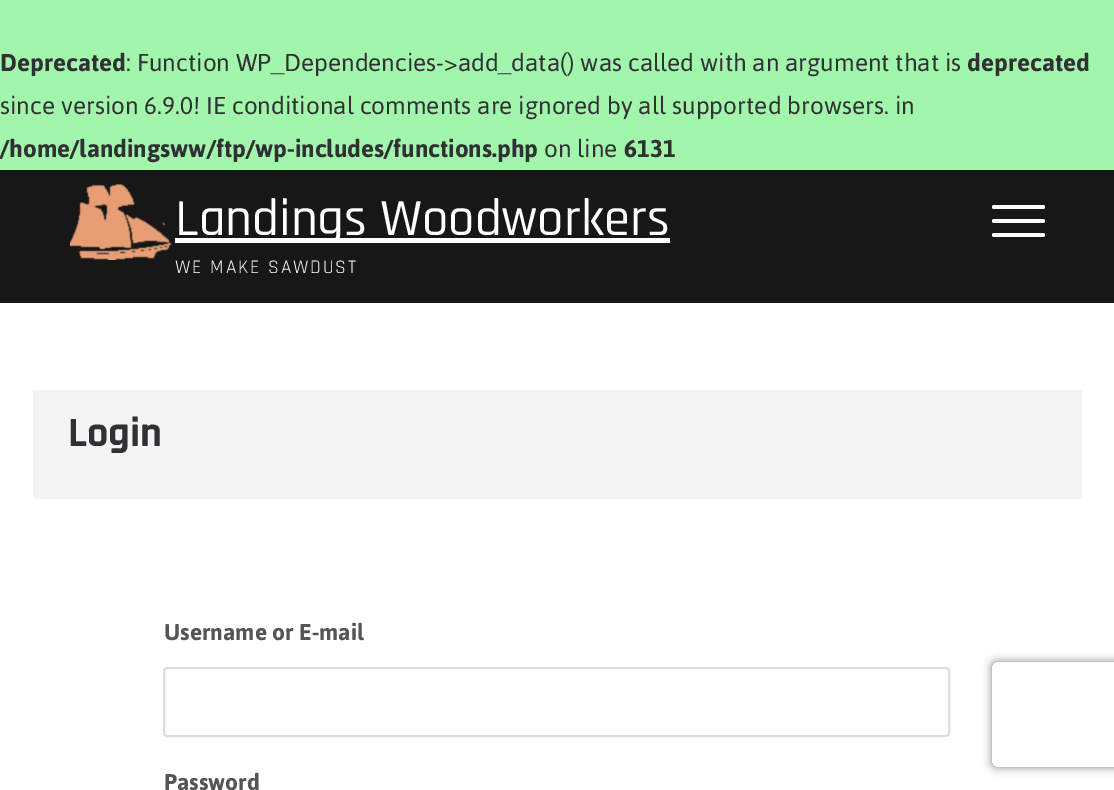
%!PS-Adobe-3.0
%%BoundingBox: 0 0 1114 790
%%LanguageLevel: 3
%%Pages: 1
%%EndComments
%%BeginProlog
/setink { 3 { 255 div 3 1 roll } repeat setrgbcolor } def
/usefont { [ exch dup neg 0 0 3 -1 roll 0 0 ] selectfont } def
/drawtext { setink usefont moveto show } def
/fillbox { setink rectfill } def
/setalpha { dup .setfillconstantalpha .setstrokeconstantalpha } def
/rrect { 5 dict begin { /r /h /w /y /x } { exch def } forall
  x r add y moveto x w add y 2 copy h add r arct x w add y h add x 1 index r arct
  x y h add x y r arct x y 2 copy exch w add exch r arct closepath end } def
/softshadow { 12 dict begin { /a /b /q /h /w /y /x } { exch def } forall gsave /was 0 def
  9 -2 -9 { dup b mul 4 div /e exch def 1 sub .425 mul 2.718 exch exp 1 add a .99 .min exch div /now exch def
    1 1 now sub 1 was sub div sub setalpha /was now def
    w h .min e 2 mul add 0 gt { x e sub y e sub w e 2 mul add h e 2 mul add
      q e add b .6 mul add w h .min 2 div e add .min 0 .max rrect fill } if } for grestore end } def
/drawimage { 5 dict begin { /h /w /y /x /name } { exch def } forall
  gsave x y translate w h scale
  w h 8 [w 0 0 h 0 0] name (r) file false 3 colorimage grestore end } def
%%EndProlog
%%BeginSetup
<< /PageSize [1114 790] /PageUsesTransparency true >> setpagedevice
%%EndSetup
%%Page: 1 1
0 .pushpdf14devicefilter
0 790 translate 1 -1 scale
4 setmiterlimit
0 0 1114 790 162 246 172 fillbox
(Deprecated) 0 71 /Jaldi-Bold 28 49 49 53 drawtext
(: Function WP_Dependencies->add_data\(\) was called with an argument that is) 126 71 /Jaldi-Regular 28 49 49 53 drawtext
(deprecated) 967 71 /Jaldi-Bold 28 49 49 53 drawtext
(since version 6.9.0! IE conditional comments are ignored by all supported browsers. in) 0 114 /Jaldi-Regular 28 49 49 53 drawtext
(/home/landingsww/ftp/wp-includes/functions.php) 0 157 /Jaldi-Bold 28 49 49 53 drawtext
(on line) 544 157 /Jaldi-Regular 28 49 49 53 drawtext
(6131) 624 157 /Jaldi-Bold 28 49 49 53 drawtext
0 303 1114 487 255 255 255 fillbox
0 170 1114 133 23 23 23 fillbox
(assets/img1.rgb) 70 184 102 76 drawimage
175 238 495 5 255 255 255 fillbox
(Landings Woodworkers) 175 235 /Rajdhani-Medium 52.5 255 255 255 drawtext
/Rajdhani-Regular 19.25 usefont
175 273 moveto 1.9 0 (WE MAKE SAWDUST) ashow
992 219 53 4 2 rrect fill
992 205 53 4 2 rrect fill
992 233 53 4 2 rrect fill
33 390 1049 109 244 244 244 fillbox
(Login) 68 446 /Rajdhani-Bold 42 49 49 53 drawtext
(Username or E-mail) 164 640 /Jaldi-Bold 26.25 85 85 85 drawtext
221 221 221 setink
2 setlinewidth
164 668 785 68 3 rrect stroke
(Password) 164 790 /Jaldi-Bold 26.25 85 85 85 drawtext
gsave
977 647 moveto 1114 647 lineto 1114 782 lineto 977 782 lineto closepath 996 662 moveto 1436 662 lineto 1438 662 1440 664 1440 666 curveto 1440 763 lineto 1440 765 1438 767 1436 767 curveto 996 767 lineto 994 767 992 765 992 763 curveto 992 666 lineto 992 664 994 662 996 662 curveto closepath eoclip newpath
128 128 128 setink
992 662 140 105 4 4.5 1 softshadow
grestore
.poppdf14devicefilter showpage
%%EOF
